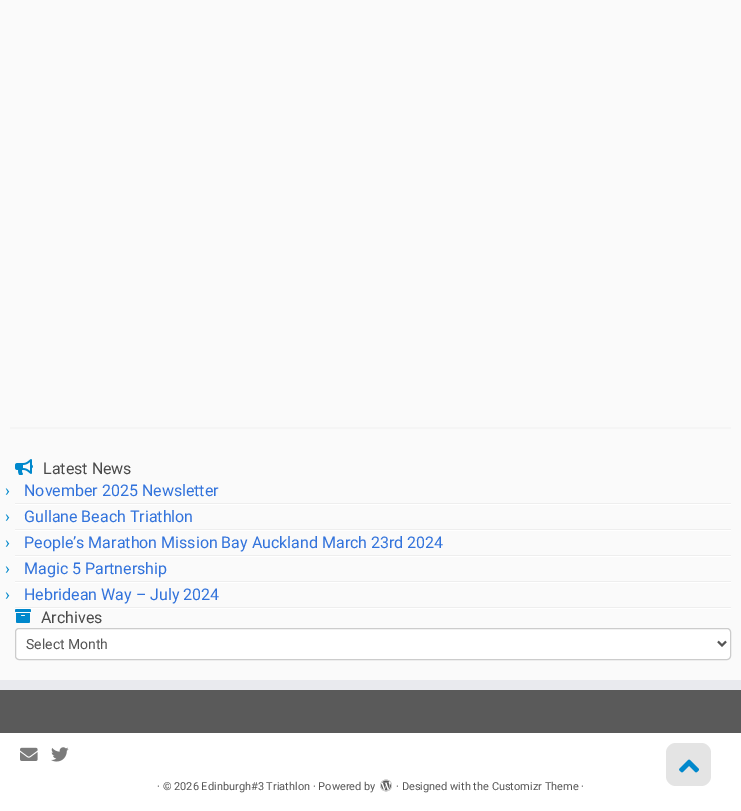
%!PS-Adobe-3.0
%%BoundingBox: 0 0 741 811
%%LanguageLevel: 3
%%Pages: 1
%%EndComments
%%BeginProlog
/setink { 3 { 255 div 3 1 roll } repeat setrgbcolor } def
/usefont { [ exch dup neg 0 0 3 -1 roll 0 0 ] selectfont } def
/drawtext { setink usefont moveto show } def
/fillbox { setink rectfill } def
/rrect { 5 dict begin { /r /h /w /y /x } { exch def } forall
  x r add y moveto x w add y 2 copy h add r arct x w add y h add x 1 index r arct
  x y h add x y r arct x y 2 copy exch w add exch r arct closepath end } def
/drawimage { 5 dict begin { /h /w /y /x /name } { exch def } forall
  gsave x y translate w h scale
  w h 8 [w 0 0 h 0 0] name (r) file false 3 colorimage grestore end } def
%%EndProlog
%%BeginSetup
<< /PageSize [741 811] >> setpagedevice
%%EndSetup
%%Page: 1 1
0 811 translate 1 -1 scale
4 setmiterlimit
0 0 741 811 250 250 250 fillbox
10 427 721 2 245 245 245 fillbox
(assets/img1.rgb) 15 459 18 16 drawimage
(Latest News) 43 474 /Roboto-Regular 16 74 74 74 drawtext
15 503 716 1 238 238 238 fillbox
(›) 5 496 /Roboto-Regular 16 0 136 204 drawtext
(November 2025 Newsletter) 24 496 /Roboto-Regular 16 50 115 220 drawtext
15 504 716 1 255 255 255 fillbox
15 529 716 1 238 238 238 fillbox
(›) 5 522 /Roboto-Regular 16 0 136 204 drawtext
(Gullane Beach Triathlon) 24 522 /Roboto-Regular 16 50 115 220 drawtext
15 530 716 1 255 255 255 fillbox
15 555 716 1 238 238 238 fillbox
(›) 5 548 /Roboto-Regular 16 0 136 204 drawtext
(People’s Marathon Mission Bay Auckland March 23rd 2024) 24 548 /Roboto-Regular 16 50 115 220 drawtext
15 556 716 1 255 255 255 fillbox
15 581 716 1 238 238 238 fillbox
(›) 5 574 /Roboto-Regular 16 0 136 204 drawtext
(Magic 5 Partnership) 24 574 /Roboto-Regular 16 50 115 220 drawtext
15 582 716 1 255 255 255 fillbox
15 607 716 1 238 238 238 fillbox
(›) 5 600 /Roboto-Regular 16 0 136 204 drawtext
(Hebridean Way – July 2024) 24 600 /Roboto-Regular 16 50 115 220 drawtext
15 608 716 1 255 255 255 fillbox
(assets/img2.rgb) 15 609 16 14 drawimage
(Archives) 41 623 /Roboto-Regular 16 74 74 74 drawtext
255 255 255 setink
15.5 628.5 715 31 3.5 rrect gsave fill grestore
204 204 204 setink
stroke
85 85 85 setink
2 setlinewidth
718 641.5 moveto 722 645.5 lineto 726 641.5 lineto stroke
(Select Month) 26 649 /Roboto-Regular 14 85 85 85 drawtext
0 690 741 43 90 90 90 fillbox
0 680 741 10 233 234 238 fillbox
0 733 741 78 255 255 255 fillbox
(assets/img3.rgb) 20 747 18 14 drawimage
(assets/img4.rgb) 51 747 18 15 drawimage
(· © 2026 Edinburgh#3 Triathlon · Powered by) 157 790 /Roboto-Regular 11 85 85 85 drawtext
(assets/img5.rgb) 380 779 12 13 drawimage
(· Designed with the Customizr Theme ·) 396 790 /Roboto-Regular 11 85 85 85 drawtext
228 228 228 setink
666 743 45 43 10 rrect fill
(assets/img6.rgb) 679 759 20 14 drawimage
showpage
%%EOF
